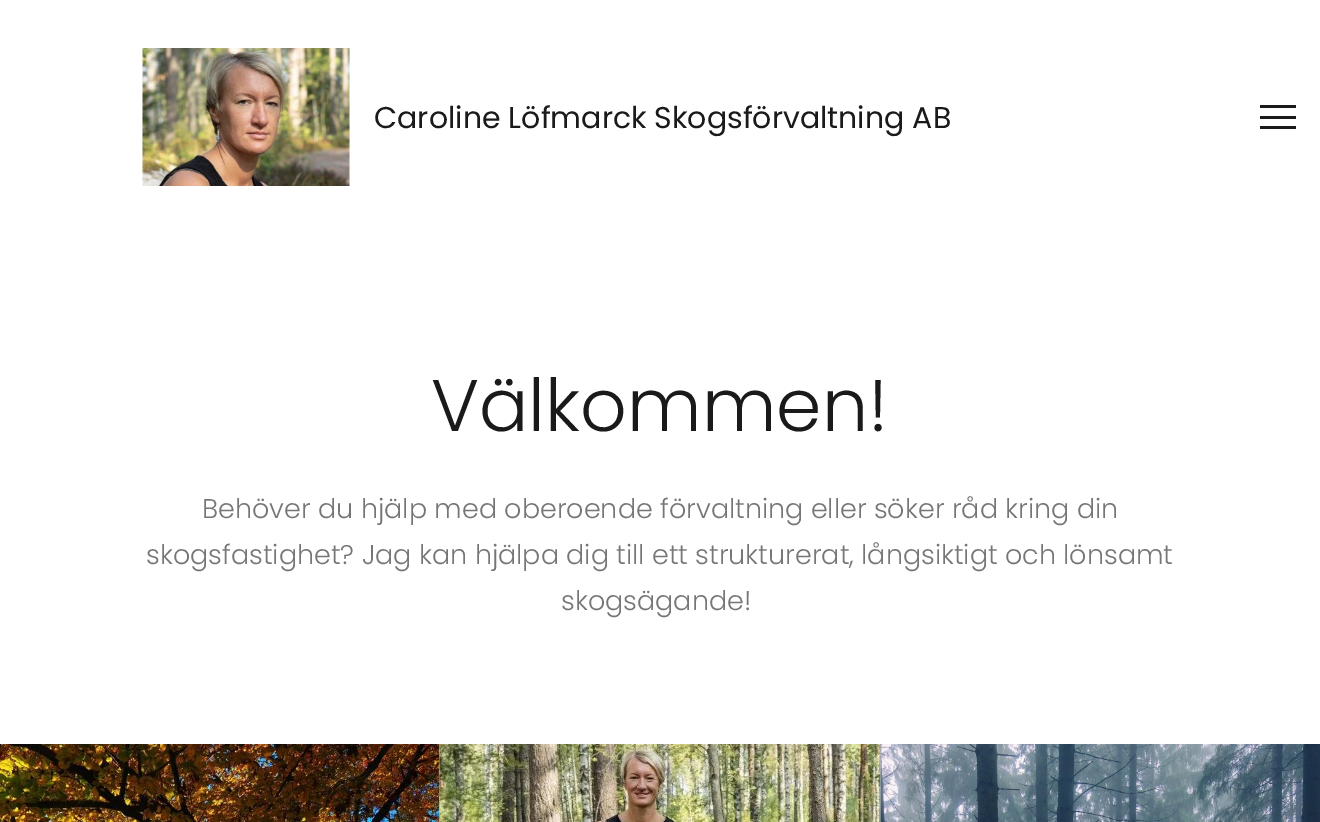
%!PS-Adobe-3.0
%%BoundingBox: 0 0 1320 822
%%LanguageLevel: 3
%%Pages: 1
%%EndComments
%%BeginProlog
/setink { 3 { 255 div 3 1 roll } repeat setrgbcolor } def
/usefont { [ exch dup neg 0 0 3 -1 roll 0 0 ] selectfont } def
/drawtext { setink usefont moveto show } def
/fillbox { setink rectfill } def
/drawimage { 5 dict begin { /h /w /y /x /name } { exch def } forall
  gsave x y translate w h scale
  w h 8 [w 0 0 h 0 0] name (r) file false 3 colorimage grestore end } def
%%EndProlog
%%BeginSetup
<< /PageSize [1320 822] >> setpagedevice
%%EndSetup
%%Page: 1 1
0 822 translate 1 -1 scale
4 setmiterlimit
0 0 1320 822 255 255 255 fillbox
(assets/img1.rgb) 142 48 208 138 drawimage
(Caroline Löfmarck Skogsförvaltning AB) 374 128 /Poppins-Regular 30 26 26 26 drawtext
1260 116 36 3 26 26 26 fillbox
1260 105 36 3 26 26 26 fillbox
1260 126 36 3 26 26 26 fillbox
(Välkommen!) 431 431 /Poppins-Light 73 26 26 26 drawtext
(Behöver du hjälp med oberoende förvaltning eller söker råd kring din) 202 518 /Poppins-Light 27 118 118 118 drawtext
(skogsfastighet? Jag kan hjälpa dig till ett strukturerat, långsiktigt och lönsamt) 146 564 /Poppins-Light 27 118 118 118 drawtext
(skogsägande!) 561 610 /Poppins-Light 27 118 118 118 drawtext
(assets/img2.rgb) 0 744 440 78 drawimage
(assets/img3.rgb) 439 744 442 78 drawimage
(assets/img4.rgb) 880 744 440 78 drawimage
showpage
%%EOF
